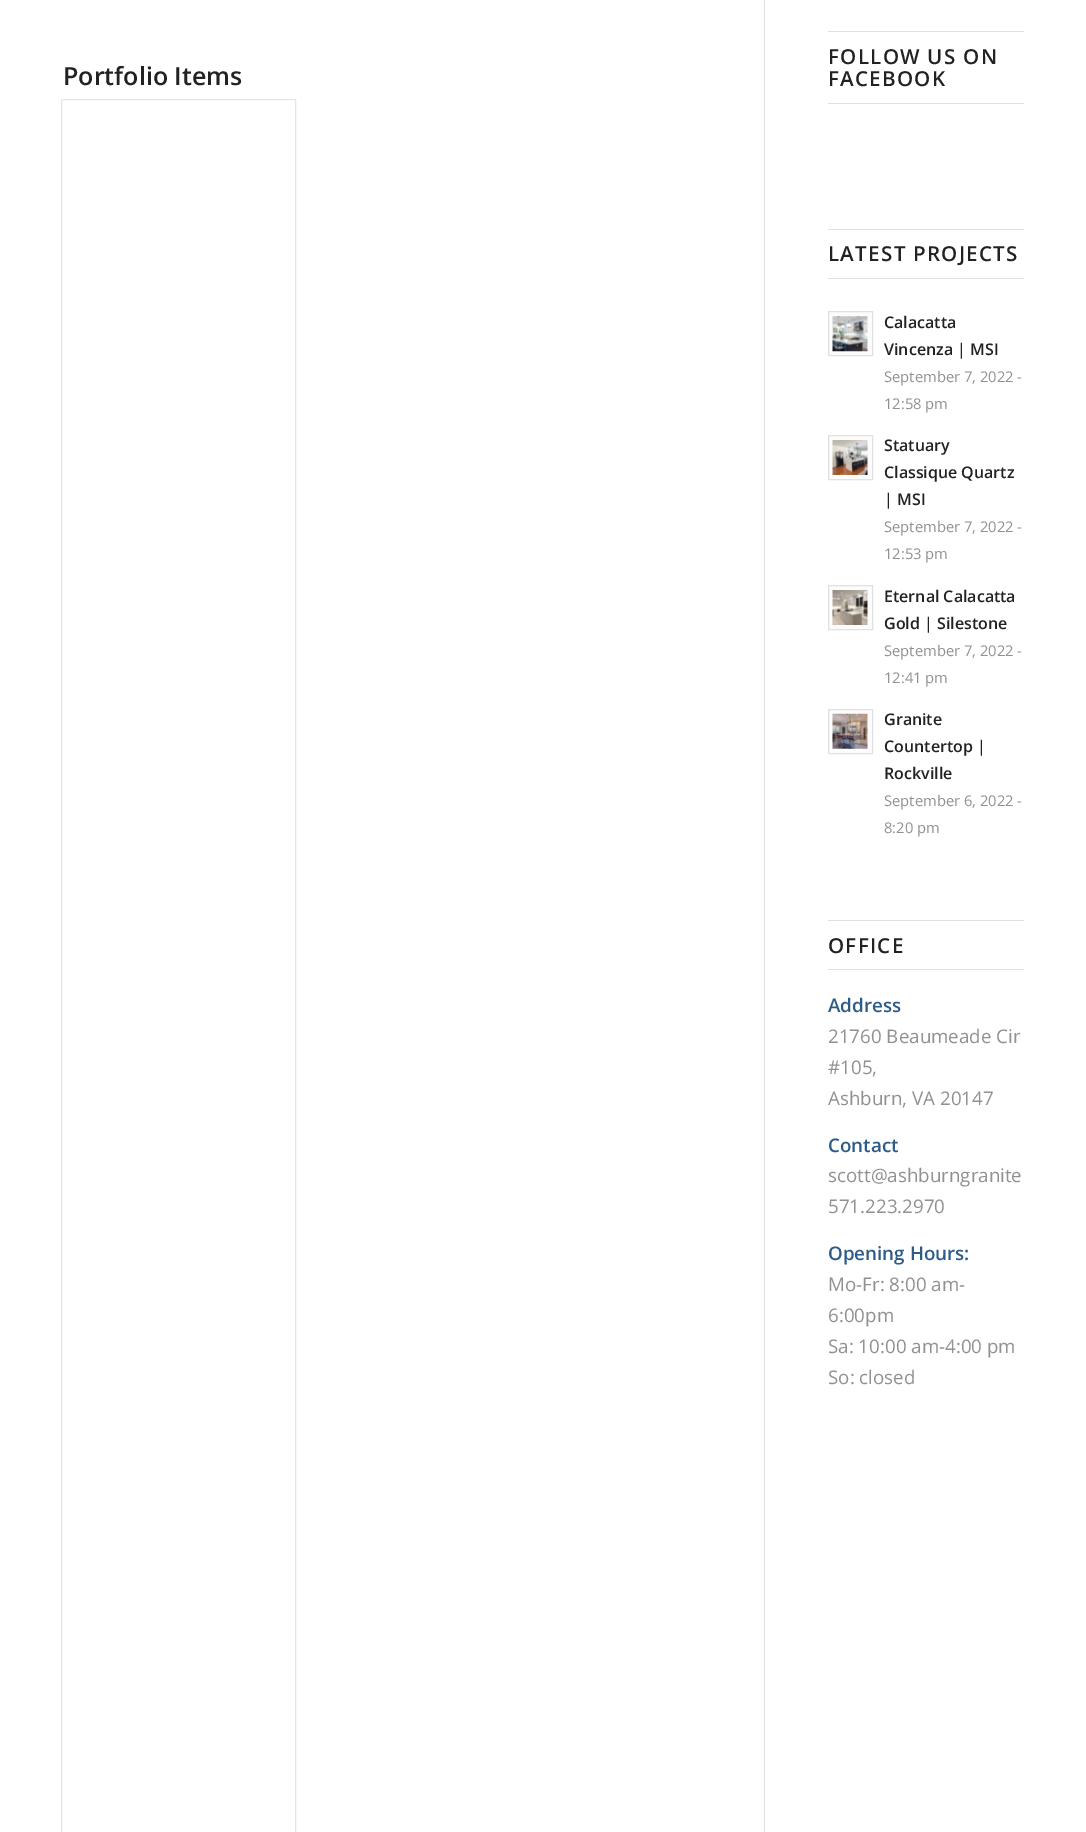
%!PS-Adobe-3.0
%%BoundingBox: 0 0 1086 1832
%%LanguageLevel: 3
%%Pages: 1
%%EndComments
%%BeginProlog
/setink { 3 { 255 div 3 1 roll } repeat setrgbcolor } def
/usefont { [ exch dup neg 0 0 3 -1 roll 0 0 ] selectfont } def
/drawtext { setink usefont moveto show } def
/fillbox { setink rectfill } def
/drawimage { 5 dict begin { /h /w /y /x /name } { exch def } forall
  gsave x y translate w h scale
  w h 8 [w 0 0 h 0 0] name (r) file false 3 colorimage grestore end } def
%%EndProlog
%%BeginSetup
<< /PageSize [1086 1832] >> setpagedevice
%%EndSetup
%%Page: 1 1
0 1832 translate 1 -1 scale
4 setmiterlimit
0 0 1086 1832 255 255 255 fillbox
764 0 1 1832 225 225 225 fillbox
(Portfolio Items) 63 85 /OpenSans-SemiBold 25 34 34 34 drawtext
230 230 230 setink
61.5 99.5 234 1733 rectstroke
828 31 196 1 225 225 225 fillbox
828 103 196 1 225 225 225 fillbox
/OpenSans-SemiBold 20.6 usefont
34 34 34 setink
828 64 moveto 1.25 0 (FOLLOW US ON) ashow
828 86 moveto 1.25 0 (FACEBOOK) ashow
828 229 196 1 225 225 225 fillbox
828 278 196 1 225 225 225 fillbox
34 34 34 setink
828 261 moveto 1.25 0 (LATEST PROJECTS) ashow
252 252 252 setink
828.5 311.5 moveto 872.5 311.5 lineto 872.5 355.5 lineto 828.5 355.5 lineto closepath gsave fill grestore
225 225 225 setink
stroke
(assets/img1.rgb) 832 316 36 36 drawimage
(Calacatta) 884 328 /OpenSans-SemiBold 16 34 34 34 drawtext
(Vincenza | MSI) 884 355 /OpenSans-SemiBold 16 34 34 34 drawtext
(September 7, 2022 -) 884 382 /OpenSans-Regular 14.75 145 145 145 drawtext
(12:58 pm) 884 409 /OpenSans-Regular 14.75 145 145 145 drawtext
252 252 252 setink
828.5 435.5 moveto 872.5 435.5 lineto 872.5 479.5 lineto 828.5 479.5 lineto closepath gsave fill grestore
225 225 225 setink
stroke
(assets/img2.rgb) 832 440 36 35 drawimage
(Statuary) 884 451 /OpenSans-SemiBold 16 34 34 34 drawtext
(Classique Quartz) 884 478 /OpenSans-SemiBold 16 34 34 34 drawtext
(| MSI) 884 505 /OpenSans-SemiBold 16 34 34 34 drawtext
(September 7, 2022 -) 884 532 /OpenSans-Regular 14.75 145 145 145 drawtext
(12:53 pm) 884 559 /OpenSans-Regular 14.75 145 145 145 drawtext
252 252 252 setink
828.5 585.5 moveto 872.5 585.5 lineto 872.5 629.5 lineto 828.5 629.5 lineto closepath gsave fill grestore
225 225 225 setink
stroke
(assets/img3.rgb) 832 590 36 35 drawimage
(Eternal Calacatta) 884 602 /OpenSans-SemiBold 16 34 34 34 drawtext
(Gold | Silestone) 884 629 /OpenSans-SemiBold 16 34 34 34 drawtext
(September 7, 2022 -) 884 656 /OpenSans-Regular 14.75 145 145 145 drawtext
(12:41 pm) 884 683 /OpenSans-Regular 14.75 145 145 145 drawtext
252 252 252 setink
828.5 709.5 moveto 872.5 709.5 lineto 872.5 753.5 lineto 828.5 753.5 lineto closepath gsave fill grestore
225 225 225 setink
stroke
(assets/img4.rgb) 832 713 36 36 drawimage
(Granite) 884 725 /OpenSans-SemiBold 16 34 34 34 drawtext
(Countertop |) 884 752 /OpenSans-SemiBold 16 34 34 34 drawtext
(Rockville) 884 779 /OpenSans-SemiBold 16 34 34 34 drawtext
(September 6, 2022 -) 884 806 /OpenSans-Regular 14.75 145 145 145 drawtext
(8:20 pm) 884 833 /OpenSans-Regular 14.75 145 145 145 drawtext
828 920 196 1 225 225 225 fillbox
828 969 196 1 225 225 225 fillbox
/OpenSans-SemiBold 20.6 usefont
34 34 34 setink
828 953 moveto 1.25 0 (OFFICE) ashow
(Address) 828 1012 /OpenSans-SemiBold 18.75 45 92 136 drawtext
(21760 Beaumeade Cir) 828 1043 /OpenSans-Regular 18.75 145 145 145 drawtext
(#105,) 828 1074 /OpenSans-Regular 18.75 145 145 145 drawtext
(Ashburn, VA 20147) 828 1105 /OpenSans-Regular 18.75 145 145 145 drawtext
(Contact) 828 1152 /OpenSans-SemiBold 18.75 45 92 136 drawtext
(scott@ashburngranite) 828 1182 /OpenSans-Regular 18.75 145 145 145 drawtext
(571.223.2970) 828 1213 /OpenSans-Regular 18.75 145 145 145 drawtext
(Opening Hours:) 828 1260 /OpenSans-SemiBold 18.75 45 92 136 drawtext
(Mo-Fr: 8:00 am-) 828 1291 /OpenSans-Regular 18.75 145 145 145 drawtext
(6:00pm) 828 1322 /OpenSans-Regular 18.75 145 145 145 drawtext
(Sa: 10:00 am-4:00 pm) 828 1353 /OpenSans-Regular 18.75 145 145 145 drawtext
(So: closed) 828 1384 /OpenSans-Regular 18.75 145 145 145 drawtext
showpage
%%EOF
